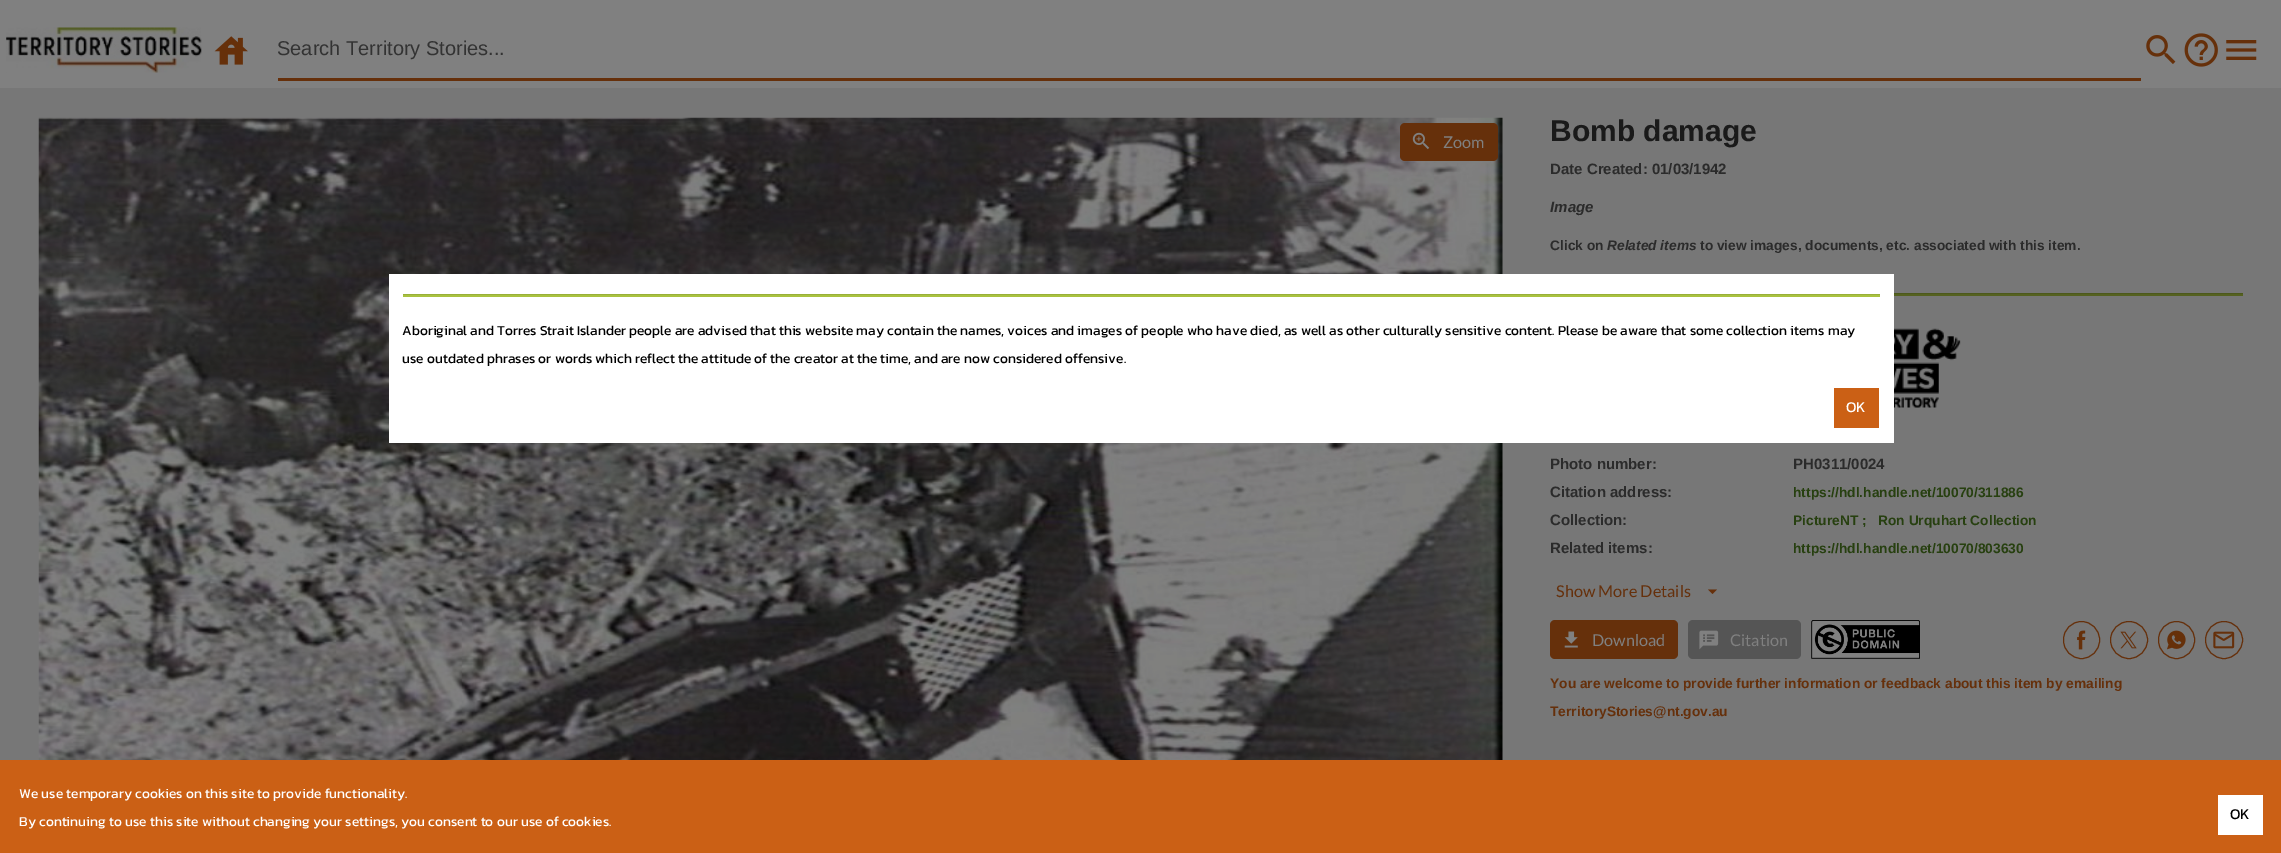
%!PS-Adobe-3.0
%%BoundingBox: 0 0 2281 853
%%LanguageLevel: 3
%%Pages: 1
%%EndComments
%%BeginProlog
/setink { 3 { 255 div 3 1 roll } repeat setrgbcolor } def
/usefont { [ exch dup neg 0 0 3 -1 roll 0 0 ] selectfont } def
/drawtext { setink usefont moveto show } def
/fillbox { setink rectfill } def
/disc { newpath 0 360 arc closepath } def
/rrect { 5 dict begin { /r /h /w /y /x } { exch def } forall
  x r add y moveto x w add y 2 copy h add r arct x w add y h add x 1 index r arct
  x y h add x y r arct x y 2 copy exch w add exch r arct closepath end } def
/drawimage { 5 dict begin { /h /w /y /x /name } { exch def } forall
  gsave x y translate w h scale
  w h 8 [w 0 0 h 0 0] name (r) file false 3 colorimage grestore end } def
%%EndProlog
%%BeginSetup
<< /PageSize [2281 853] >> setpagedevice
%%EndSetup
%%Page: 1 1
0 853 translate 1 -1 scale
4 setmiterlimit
0 0 2281 853 119 119 119 fillbox
0 0 2281 88 128 128 128 fillbox
(assets/img1.rgb) 6 27 196 46 drawimage
(assets/img2.rgb) 214 36 34 29 drawimage
278 78 1863 3 102 48 11 fillbox
(Search Territory Stories...) 277 55 /LiberationSans-Regular 20 51 51 51 drawtext
(assets/img3.rgb) 2146 35 30 29 drawimage
(assets/img4.rgb) 2184 33 34 34 drawimage
(assets/img5.rgb) 2226 40 31 20 drawimage
(assets/img6.rgb) 38 117 1465 643 drawimage
102 48 11 setink
1400 123 98 38 5 rrect fill
(assets/img7.rgb) 1412 132 18 18 drawimage
(Zoom) 1443 148 /Lato-Regular 16.25 128 128 128 drawtext
(Bomb damage) 1550 141 /LiberationSans-Bold 30 26 26 26 drawtext
(Date Created: 01/03/1942) 1550 174 /LiberationSans-Bold 15 43 43 43 drawtext
(Image) 1550 212 /LiberationSans-BoldItalic 15 43 43 43 drawtext
(Click on) 1550 250 /LiberationSans-Bold 13.75 43 43 43 drawtext
(Related items) 1607 250 /LiberationSans-BoldItalic 13.75 43 43 43 drawtext
(to view images, documents, etc. associated with this item.) 1700 250 /LiberationSans-Bold 13.75 43 43 43 drawtext
1894 294 349 2 85 97 32 fillbox
1894 293 349 1 76 88 29 fillbox
(assets/img8.rgb) 1894 328 67 80 drawimage
(Photo number:) 1550 469 /LiberationSans-Bold 15 43 43 43 drawtext
(PH0311/0024) 1793 469 /LiberationSans-Bold 15 43 43 43 drawtext
(Citation address:) 1550 497 /LiberationSans-Bold 15 43 43 43 drawtext
(https://hdl.handle.net/10070/311886) 1793 497 /LiberationSans-Bold 13.75 39 64 16 drawtext
(Collection:) 1550 525 /LiberationSans-Bold 15 43 43 43 drawtext
(PictureNT ;) 1793 525 /LiberationSans-Bold 13.75 39 64 16 drawtext
(Ron Urquhart Collection) 1878 525 /LiberationSans-Bold 13.75 39 64 16 drawtext
(Related items:) 1550 553 /LiberationSans-Bold 15 43 43 43 drawtext
(https://hdl.handle.net/10070/803630) 1793 553 /LiberationSans-Bold 13.75 39 64 16 drawtext
(Show More Details) 1556 597 /Lato-Regular 16.25 102 48 11 drawtext
1708 589.5 moveto 1717 589.5 lineto 1712.5 594 lineto closepath fill
1550 620 128 39 5 rrect fill
(assets/img9.rgb) 1564 631 14 17 drawimage
(Download) 1592 646 /Lato-Regular 16.25 128 128 128 drawtext
85 85 85 setink
1688 620 113 39 5 rrect fill
(assets/img10.rgb) 1699 630 20 20 drawimage
(Citation) 1730 646 /Lato-Regular 16.25 128 128 128 drawtext
(assets/img11.rgb) 1811 620 109 39 drawimage
102 48 11 setink
2063.5 621.5 36 37 18 rrect stroke
(assets/img12.rgb) 2077 630 9 20 drawimage
2129 640 18.5 disc stroke
(assets/img13.rgb) 2120 631 17 18 drawimage
2158.5 621.5 36 37 18 rrect stroke
(assets/img14.rgb) 2167 630 19 20 drawimage
2224 640 18.5 disc stroke
(assets/img15.rgb) 2213 631 22 18 drawimage
(You are welcome to provide further information or feedback about this item by emailing) 1550 688 /LiberationSans-Bold 13.75 102 48 11 drawtext
(TerritoryStories@nt.gov.au) 1550 716 /LiberationSans-Bold 13.75 102 48 11 drawtext
389 274 1505 169 255 255 255 fillbox
403 295 1477 2 169 194 63 fillbox
403 294 1477 1 152 175 57 fillbox
(Aboriginal and Torres Strait Islander people are advised that this website may contain the names, voices and images of people who have died, as well as other culturally sensitive content. Please be aware that some collection items may) 402 335 /Kanit-Regular 13.75 0 0 0 drawtext
(use outdated phrases or words which reflect the attitude of the creator at the time, and are now considered offensive.) 402 363 /Kanit-Regular 13.75 0 0 0 drawtext
1834 388 45 40 203 96 21 fillbox
(OK) 1846 412 /Kanit-Regular 15 255 255 255 drawtext
0 760 2281 93 203 96 21 fillbox
(We use temporary cookies on this site to provide functionality.) 19 798 /Kanit-Regular 13.75 255 255 255 drawtext
(By continuing to use this site without changing your settings, you consent to our use of cookies.) 19 826 /Kanit-Regular 13.75 255 255 255 drawtext
2218 795 45 40 255 255 255 fillbox
(OK) 2230 819 /Kanit-Regular 15 0 0 0 drawtext
showpage
%%EOF
